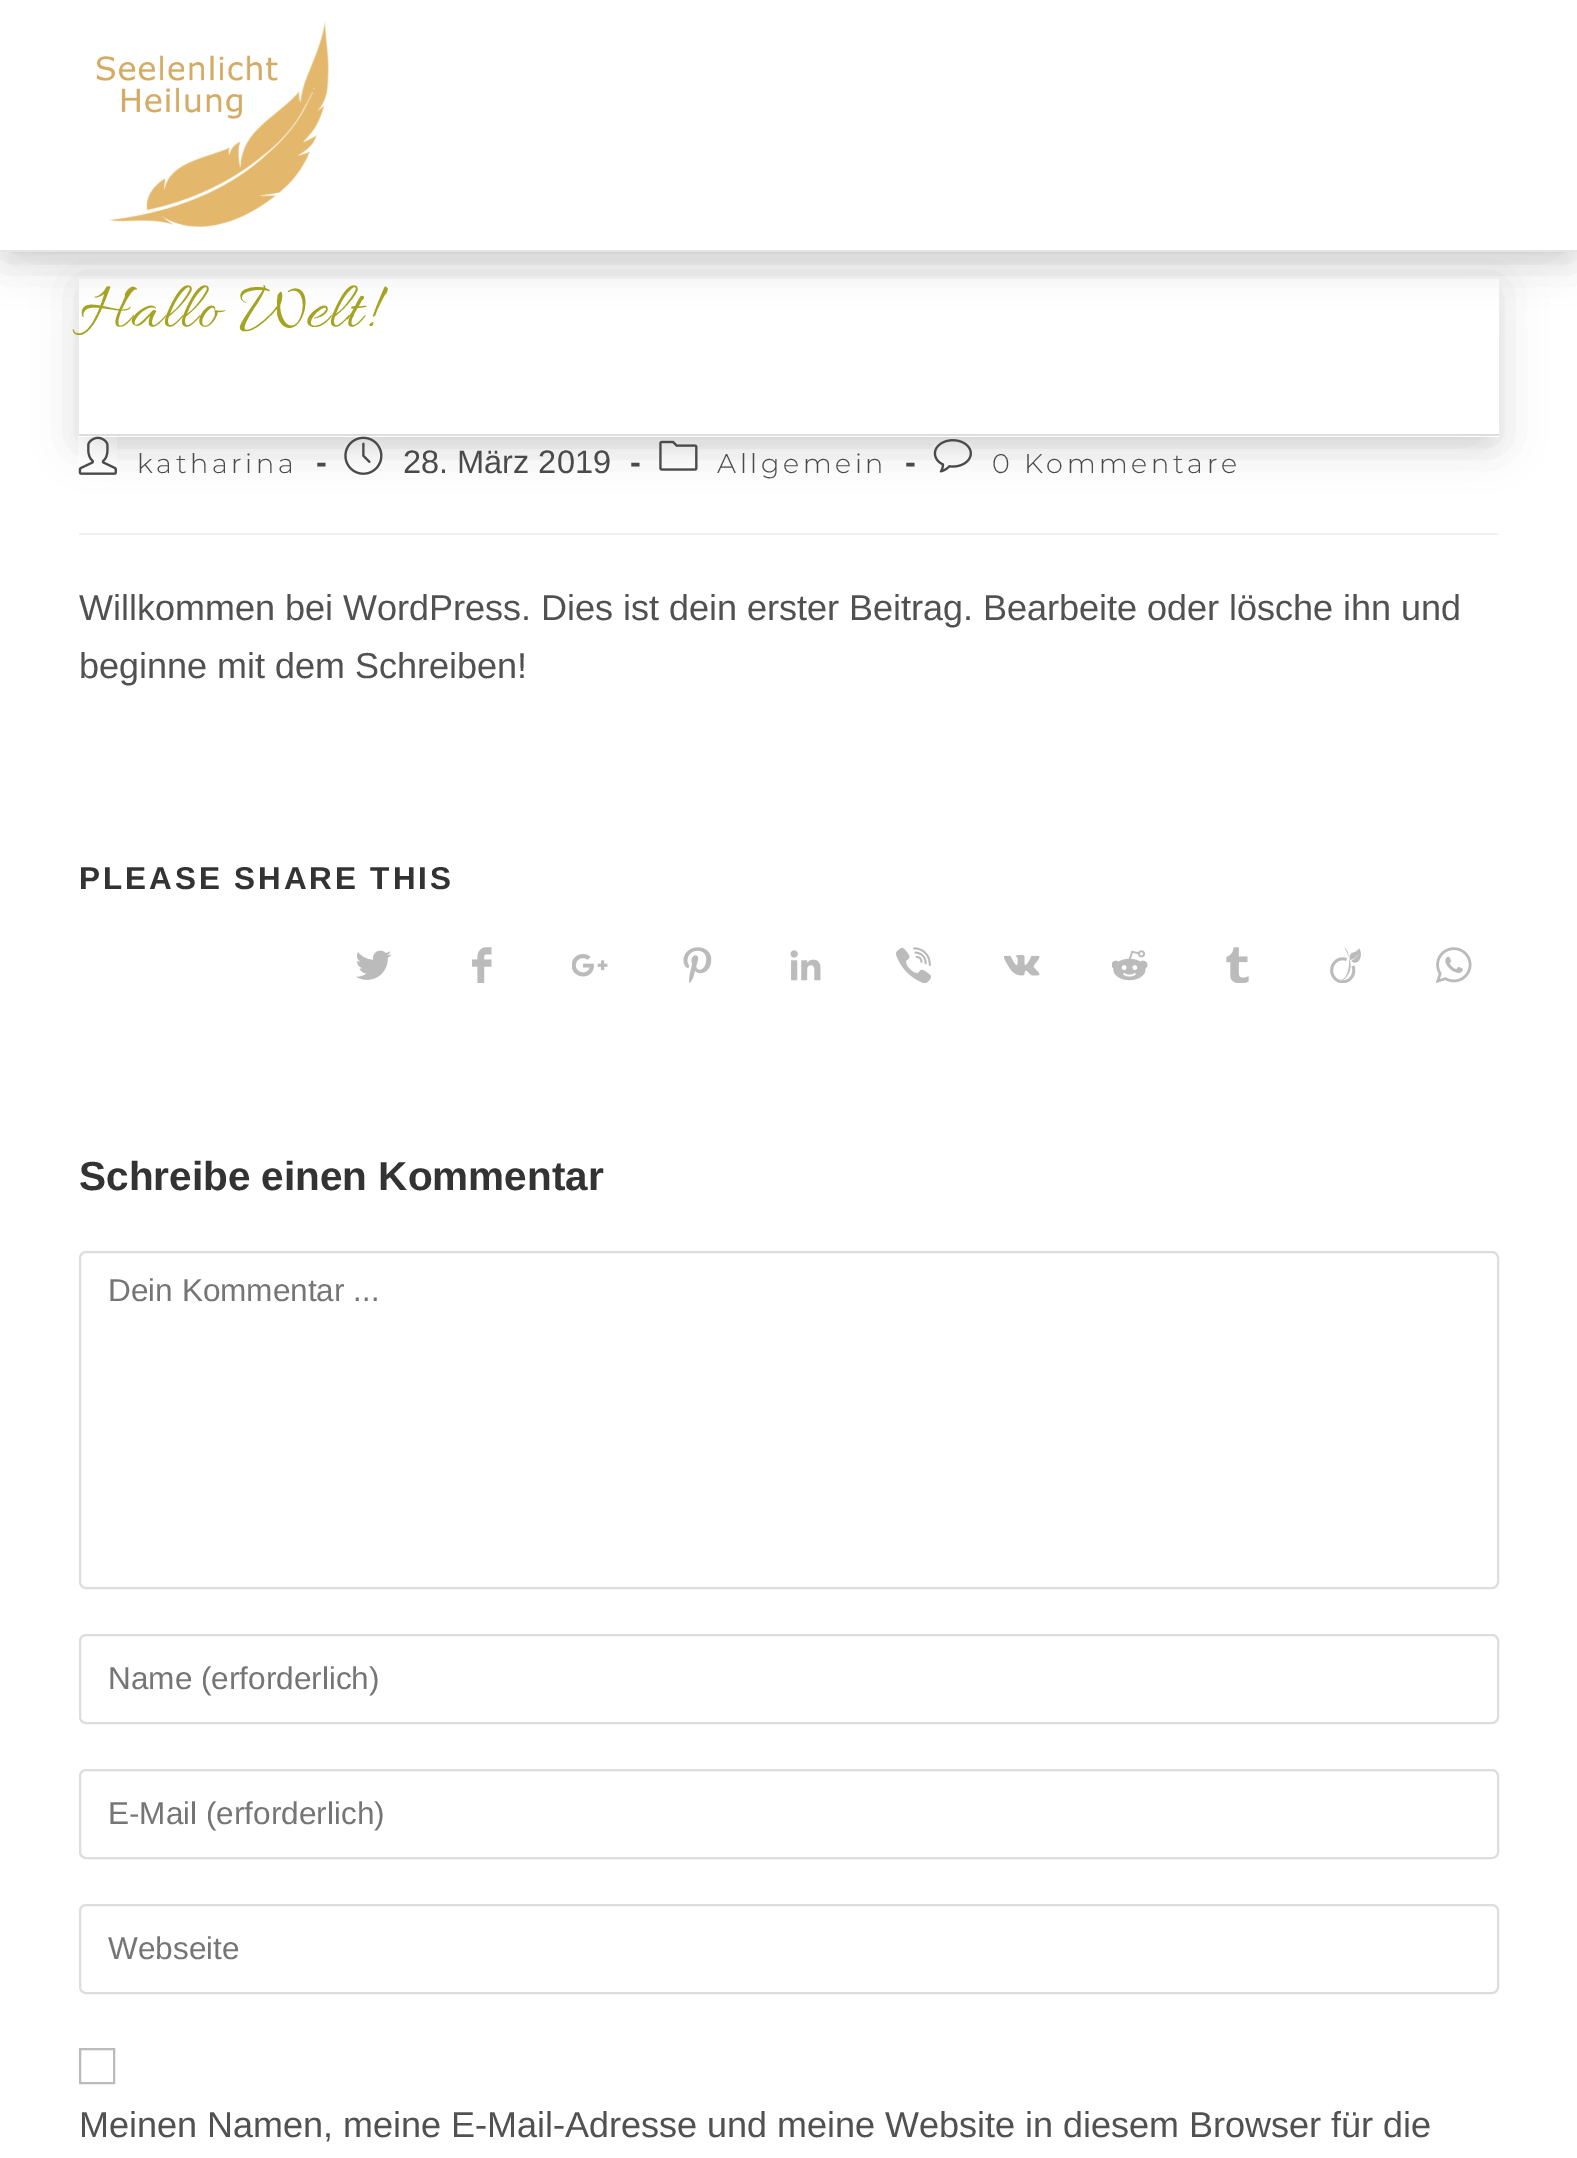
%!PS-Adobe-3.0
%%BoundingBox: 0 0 1577 2158
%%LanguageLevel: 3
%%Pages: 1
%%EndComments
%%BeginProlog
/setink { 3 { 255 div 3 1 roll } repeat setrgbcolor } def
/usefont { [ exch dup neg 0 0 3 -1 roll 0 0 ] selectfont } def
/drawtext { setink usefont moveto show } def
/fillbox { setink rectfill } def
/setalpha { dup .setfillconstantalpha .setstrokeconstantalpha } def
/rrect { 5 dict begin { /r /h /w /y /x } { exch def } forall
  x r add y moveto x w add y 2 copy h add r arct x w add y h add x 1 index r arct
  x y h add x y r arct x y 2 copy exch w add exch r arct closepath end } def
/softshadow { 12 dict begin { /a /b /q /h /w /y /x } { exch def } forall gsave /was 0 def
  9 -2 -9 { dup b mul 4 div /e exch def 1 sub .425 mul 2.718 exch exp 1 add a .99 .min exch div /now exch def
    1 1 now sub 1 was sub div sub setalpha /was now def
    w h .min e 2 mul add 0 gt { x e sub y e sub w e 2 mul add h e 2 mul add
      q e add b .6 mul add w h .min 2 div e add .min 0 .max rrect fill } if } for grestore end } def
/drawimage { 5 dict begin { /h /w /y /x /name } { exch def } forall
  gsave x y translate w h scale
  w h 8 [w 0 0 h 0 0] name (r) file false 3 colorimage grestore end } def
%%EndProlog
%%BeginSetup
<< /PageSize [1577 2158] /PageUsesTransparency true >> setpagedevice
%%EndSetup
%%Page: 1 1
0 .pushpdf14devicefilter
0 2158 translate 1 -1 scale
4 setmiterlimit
0 0 1577 2158 255 255 255 fillbox
0 0 0 setink
90 308 1397 135 0 11 0.05 softshadow
79 286 1420 157 0 22.5 0.12 softshadow
106 329 1366 103 0 22.5 0.1 softshadow
79 279 1420 158 255 255 255 fillbox
0 0 0 setink
11 29 1555 230 0 11 0.05 softshadow
0 7 1577 252 0 22.5 0.12 softshadow
27 50 1523 198 0 22.5 0.1 softshadow
0 0 1577 250 255 255 255 fillbox
0 250 1577 2 229 229 229 fillbox
(assets/img1.rgb) 96 21 233 207 drawimage
79 434 1420 2 221 221 221 fillbox
/Allura-Regular 67.5 usefont
165 163 33 setink
79 326 moveto 1.4 0 (Hallo Welt!) ashow
79 533 1420 2 241 241 241 fillbox
(assets/img2.rgb) 78 436 39 39 drawimage
/Montserrat-Light 27 usefont
74 74 74 setink
137 473 moveto 3.6 0 (katharina) ashow
(-) 316 473 /LiberationSans-Bold 32.5 74 74 74 drawtext
(assets/img3.rgb) 344 436 39 39 drawimage
(28. März 2019) 403 473 /LiberationSans-Regular 32.5 74 74 74 drawtext
(-) 630 473 /LiberationSans-Bold 32.5 74 74 74 drawtext
(assets/img4.rgb) 659 440 39 31 drawimage
/Montserrat-Light 27 usefont
717 473 moveto 3.6 0 (Allgemein) ashow
(-) 905 473 /LiberationSans-Bold 32.5 74 74 74 drawtext
(assets/img5.rgb) 933 439 39 34 drawimage
/Montserrat-Light 27 usefont
992 473 moveto 3.6 0 (0 Kommentare) ashow
(Willkommen bei WordPress. Dies ist dein erster Beitrag. Bearbeite oder lösche ihn und) 79 620 /LiberationSans-Regular 36 81 81 81 drawtext
(beginne mit dem Schreiben!) 79 678 /LiberationSans-Regular 36 81 81 81 drawtext
/LiberationSans-Bold 31.5 usefont
51 51 51 setink
79 889 moveto 2.9 0 (PLEASE SHARE THIS) ashow
(assets/img6.rgb) 356 950 36 30 drawimage
(assets/img7.rgb) 472 947 20 36 drawimage
(assets/img8.rgb) 572 954 36 23 drawimage
(assets/img9.rgb) 683 947 29 36 drawimage
(assets/img10.rgb) 790 950 31 31 drawimage
(assets/img11.rgb) 896 947 35 36 drawimage
(assets/img12.rgb) 1004 955 36 21 drawimage
(assets/img13.rgb) 1112 950 36 31 drawimage
(assets/img14.rgb) 1226 947 23 36 drawimage
(assets/img15.rgb) 1330 947 31 36 drawimage
(assets/img16.rgb) 1436 947 36 36 drawimage
(Schreibe einen Kommentar) 79 1190 /LiberationSans-Bold 40.5 51 51 51 drawtext
221 221 221 setink
2 setlinewidth
80 1252 1418 336 6 rrect stroke
(Dein Kommentar ...) 108 1301 /LiberationSans-Regular 31.5 117 117 117 drawtext
221 221 221 setink
80 1635 1418 88 6 rrect stroke
(Name \(erforderlich\)) 108 1689 /LiberationSans-Regular 31.5 117 117 117 drawtext
221 221 221 setink
80 1770 1418 88 6 rrect stroke
(E-Mail \(erforderlich\)) 108 1824 /LiberationSans-Regular 31.5 117 117 117 drawtext
221 221 221 setink
80 1905 1418 88 6 rrect stroke
(Webseite) 108 1959 /LiberationSans-Regular 31.5 117 117 117 drawtext
187 187 187 setink
80 2049 34 34 rectstroke
(Meinen Namen, meine E-Mail-Adresse und meine Website in diesem Browser für die) 79 2137 /LiberationSans-Regular 36 81 81 81 drawtext
.poppdf14devicefilter showpage
%%EOF
